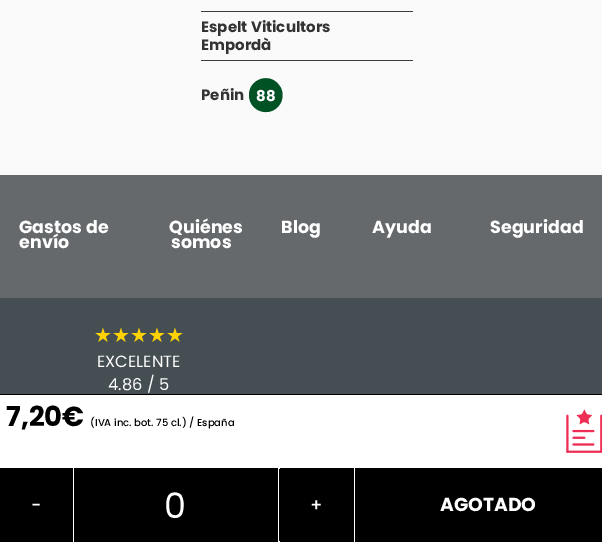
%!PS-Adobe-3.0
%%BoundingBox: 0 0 602 542
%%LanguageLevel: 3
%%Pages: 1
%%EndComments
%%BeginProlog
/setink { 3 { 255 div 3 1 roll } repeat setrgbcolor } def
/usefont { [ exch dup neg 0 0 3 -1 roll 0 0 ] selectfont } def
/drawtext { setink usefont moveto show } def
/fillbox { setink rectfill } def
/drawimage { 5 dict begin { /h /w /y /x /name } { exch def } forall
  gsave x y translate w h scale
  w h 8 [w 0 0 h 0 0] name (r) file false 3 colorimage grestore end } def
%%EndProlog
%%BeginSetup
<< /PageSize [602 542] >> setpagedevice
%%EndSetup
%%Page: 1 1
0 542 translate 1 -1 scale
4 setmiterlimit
0 0 602 542 250 250 250 fillbox
201 11 212 1 62 61 61 fillbox
201 60 212 1 62 61 61 fillbox
(Espelt Viticultors) 201 32 /Poppins-Bold 15 51 51 51 drawtext
(Empordà) 201 50 /Poppins-Bold 15 51 51 51 drawtext
(Peñin) 201 100 /Poppins-Bold 15 51 51 51 drawtext
0 82 37 setink
282.5 95 moveto 282.5 99 281.5 102.5 279 105.5 curveto 269.5 118 249 111.5 249 95 curveto 249 79 269.5 72 279 85 curveto 281.5 88 282.5 91.5 282.5 95 curveto closepath fill
(88) 256 101 /Poppins-Bold 15 255 255 255 drawtext
0 468 602 74 0 0 0 fillbox
0 395 602 73 255 255 255 fillbox
0 394 602 1 0 0 0 fillbox
(7,20€) 6 426 /Poppins-Bold 27.5 0 0 0 drawtext
(\(IVA inc. bot. 75 cl.\) / España) 90 426 /Poppins-Medium 10 0 0 0 drawtext
(assets/img1.rgb) 566 409 36 44 drawimage
(-) 31 511 /Poppins-Medium 17.5 255 255 255 drawtext
73 468 1 74 255 255 255 fillbox
(0) 164 518 /Poppins-Regular 35 255 255 255 drawtext
354 468 1 74 255 255 255 fillbox
278 468 2 74 255 255 255 fillbox
279 469 1 72 0 0 0 fillbox
(+) 310 511 /Poppins-Medium 17.5 255 255 255 drawtext
(AGOTADO) 440 511 /Poppins-Bold 18.75 255 255 255 drawtext
0 175 602 123 101 105 108 fillbox
(Gastos de) 19 233 /Poppins-Bold 17.5 255 255 255 drawtext
(envío) 19 248 /Poppins-Bold 17.5 255 255 255 drawtext
(Quiénes) 169 233 /Poppins-Bold 17.5 255 255 255 drawtext
(somos) 171 248 /Poppins-Bold 17.5 255 255 255 drawtext
(Blog) 281 233 /Poppins-Bold 17.5 255 255 255 drawtext
(Ayuda) 372 233 /Poppins-Bold 17.5 255 255 255 drawtext
(Seguridad) 490 233 /Poppins-Bold 17.5 255 255 255 drawtext
0 298 602 96 69 78 83 fillbox
(★★★★★) 94 342 /DejaVuSans-Regular 20 254 210 3 drawtext
(EXCELENTE) 97 367 /Poppins-Regular 16.25 255 255 255 drawtext
(4.86 / 5) 108 390 /Poppins-Regular 16.25 255 255 255 drawtext
showpage
%%EOF
